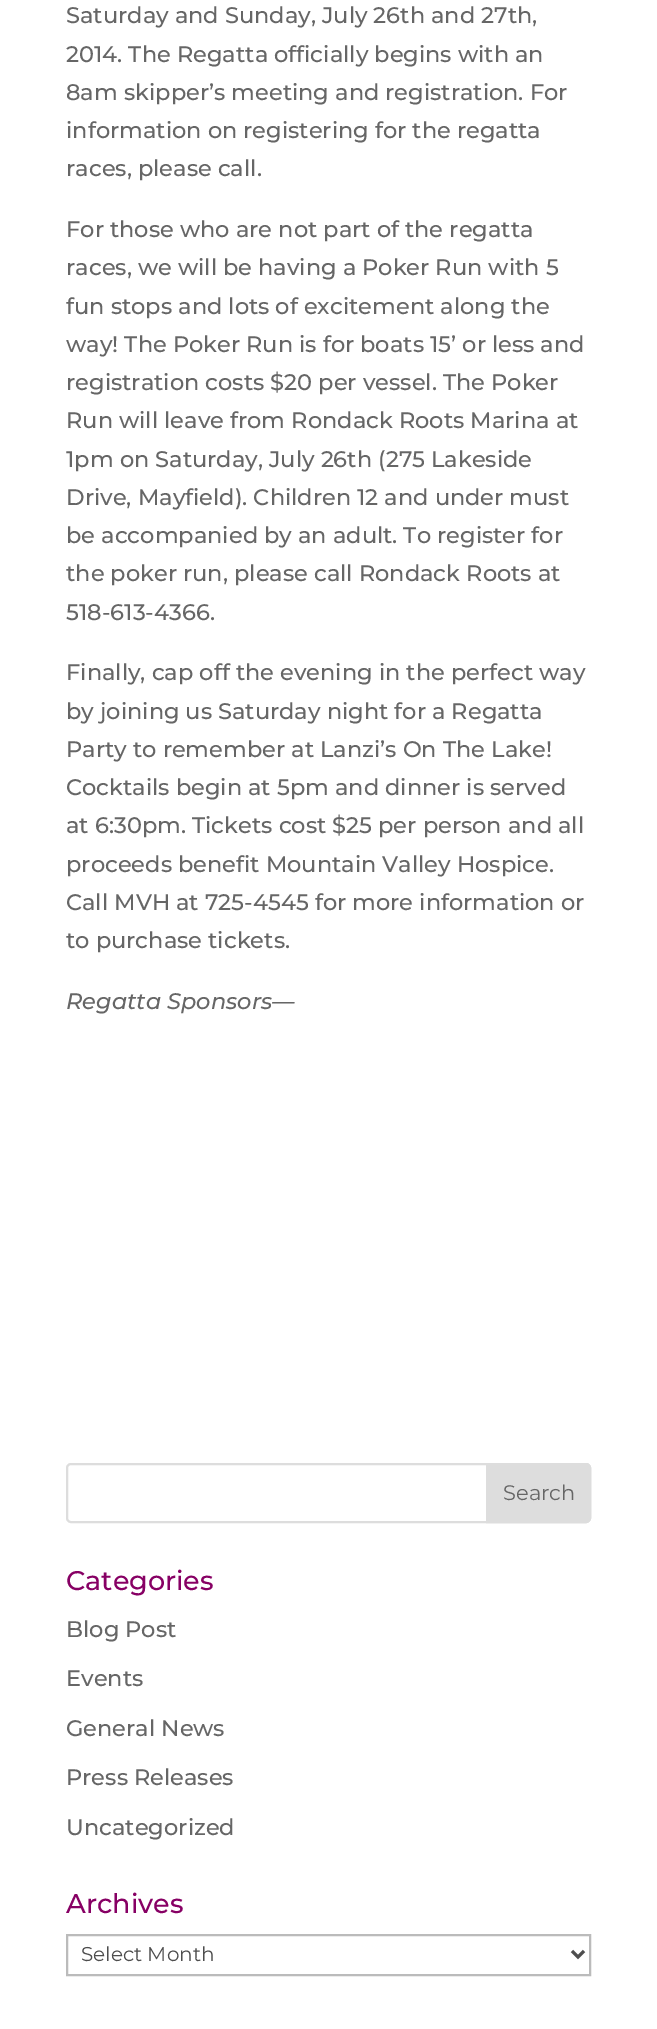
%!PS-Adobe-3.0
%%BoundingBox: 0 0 657 2029
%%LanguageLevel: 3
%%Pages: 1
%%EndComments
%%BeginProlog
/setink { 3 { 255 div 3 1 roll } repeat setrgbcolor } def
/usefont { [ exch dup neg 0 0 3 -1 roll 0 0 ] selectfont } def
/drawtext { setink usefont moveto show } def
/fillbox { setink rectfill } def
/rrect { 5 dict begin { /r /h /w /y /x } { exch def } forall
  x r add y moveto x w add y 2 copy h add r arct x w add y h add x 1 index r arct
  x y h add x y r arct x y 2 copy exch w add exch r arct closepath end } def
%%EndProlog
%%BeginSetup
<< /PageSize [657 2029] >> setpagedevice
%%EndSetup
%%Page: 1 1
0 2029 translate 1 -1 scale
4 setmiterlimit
0 0 657 2029 255 255 255 fillbox
(Saturday and Sunday, July 26th and 27th,) 66 23 /Montserrat-Medium 22.5 102 102 102 drawtext
(2014. The Regatta officially begins with an) 66 62 /Montserrat-Medium 22.5 102 102 102 drawtext
(8am skipper’s meeting and registration. For) 66 100 /Montserrat-Medium 22.5 102 102 102 drawtext
(information on registering for the regatta) 66 138 /Montserrat-Medium 22.5 102 102 102 drawtext
(races, please call.) 66 176 /Montserrat-Medium 22.5 102 102 102 drawtext
(For those who are not part of the regatta) 66 237 /Montserrat-Medium 22.5 102 102 102 drawtext
(races, we will be having a Poker Run with 5) 66 275 /Montserrat-Medium 22.5 102 102 102 drawtext
(fun stops and lots of excitement along the) 66 314 /Montserrat-Medium 22.5 102 102 102 drawtext
(way! The Poker Run is for boats 15’ or less and) 66 352 /Montserrat-Medium 22.5 102 102 102 drawtext
(registration costs $20 per vessel. The Poker) 66 390 /Montserrat-Medium 22.5 102 102 102 drawtext
(Run will leave from Rondack Roots Marina at) 66 428 /Montserrat-Medium 22.5 102 102 102 drawtext
(1pm on Saturday, July 26th \(275 Lakeside) 66 467 /Montserrat-Medium 22.5 102 102 102 drawtext
(Drive, Mayfield\). Children 12 and under must) 66 505 /Montserrat-Medium 22.5 102 102 102 drawtext
(be accompanied by an adult. To register for) 66 543 /Montserrat-Medium 22.5 102 102 102 drawtext
(the poker run, please call Rondack Roots at) 66 581 /Montserrat-Medium 22.5 102 102 102 drawtext
(518-613-4366.) 66 620 /Montserrat-Medium 22.5 102 102 102 drawtext
(Finally, cap off the evening in the perfect way) 66 680 /Montserrat-Medium 22.5 102 102 102 drawtext
(by joining us Saturday night for a Regatta) 66 719 /Montserrat-Medium 22.5 102 102 102 drawtext
(Party to remember at Lanzi’s On The Lake!) 66 757 /Montserrat-Medium 22.5 102 102 102 drawtext
(Cocktails begin at 5pm and dinner is served) 66 795 /Montserrat-Medium 22.5 102 102 102 drawtext
(at 6:30pm. Tickets cost $25 per person and all) 66 833 /Montserrat-Medium 22.5 102 102 102 drawtext
(proceeds benefit Mountain Valley Hospice.) 66 872 /Montserrat-Medium 22.5 102 102 102 drawtext
(Call MVH at 725-4545 for more information or) 66 910 /Montserrat-Medium 22.5 102 102 102 drawtext
(to purchase tickets.) 66 948 /Montserrat-Medium 22.5 102 102 102 drawtext
(Regatta Sponsors—) 66 1009 /Montserrat-MediumItalic 22.5 102 102 102 drawtext
221 221 221 setink
2 setlinewidth
67 1464 523 58 4 rrect stroke
487 1464 moveto 586 1464 lineto 588 1464 590 1466 590 1468 curveto 590 1518 lineto 590 1520 588 1522 586 1522 curveto 487 1522 lineto closepath gsave fill grestore
stroke
(Search) 503 1500 /Montserrat-Regular 21 102 102 102 drawtext
(Categories) 66 1590 /Montserrat-Medium 27 135 0 100 drawtext
(Blog Post) 66 1637 /Montserrat-Medium 22.5 102 102 102 drawtext
(Events) 66 1686 /Montserrat-Medium 22.5 102 102 102 drawtext
(General News) 66 1736 /Montserrat-Medium 22.5 102 102 102 drawtext
(Press Releases) 66 1785 /Montserrat-Medium 22.5 102 102 102 drawtext
(Uncategorized) 66 1835 /Montserrat-Medium 22.5 102 102 102 drawtext
(Archives) 66 1913 /Montserrat-Medium 27 135 0 100 drawtext
187 187 187 setink
67 1935 523 40 rectstroke
78 78 78 setink
3 setlinewidth
572 1951 moveto 578 1957 lineto 584 1951 lineto stroke
(Select Month) 81 1961 /Montserrat-Regular 20 78 78 78 drawtext
showpage
%%EOF
